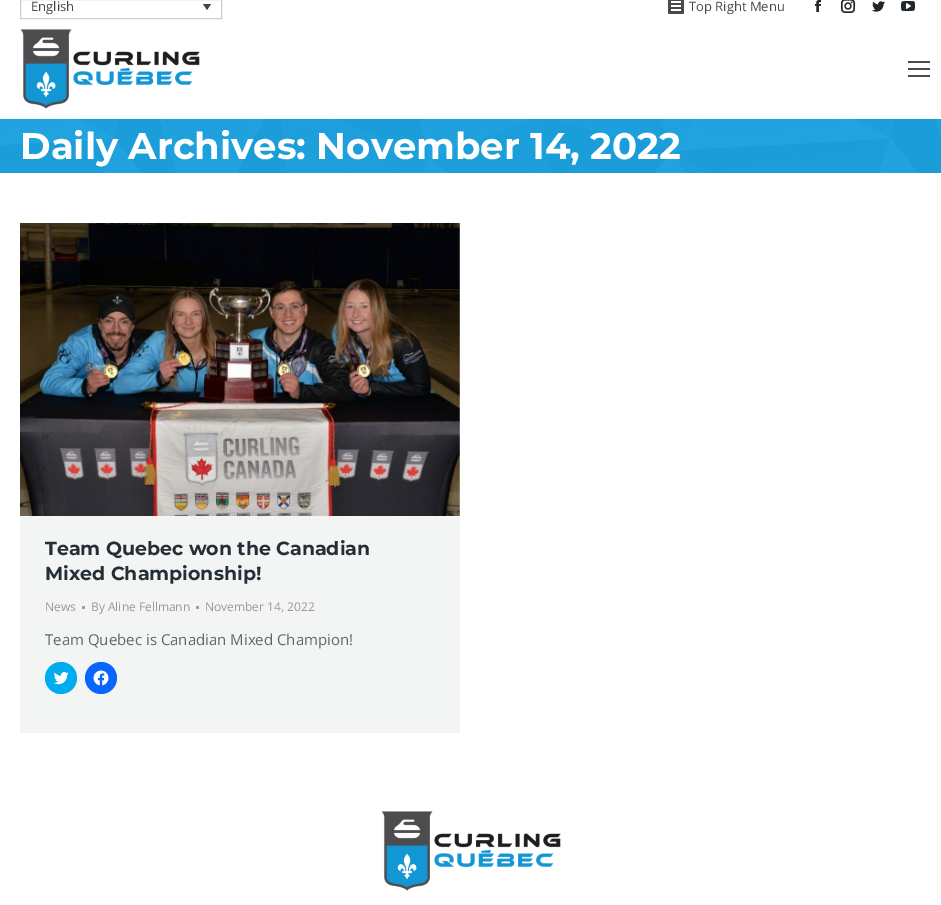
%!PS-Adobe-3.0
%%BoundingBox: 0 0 941 905
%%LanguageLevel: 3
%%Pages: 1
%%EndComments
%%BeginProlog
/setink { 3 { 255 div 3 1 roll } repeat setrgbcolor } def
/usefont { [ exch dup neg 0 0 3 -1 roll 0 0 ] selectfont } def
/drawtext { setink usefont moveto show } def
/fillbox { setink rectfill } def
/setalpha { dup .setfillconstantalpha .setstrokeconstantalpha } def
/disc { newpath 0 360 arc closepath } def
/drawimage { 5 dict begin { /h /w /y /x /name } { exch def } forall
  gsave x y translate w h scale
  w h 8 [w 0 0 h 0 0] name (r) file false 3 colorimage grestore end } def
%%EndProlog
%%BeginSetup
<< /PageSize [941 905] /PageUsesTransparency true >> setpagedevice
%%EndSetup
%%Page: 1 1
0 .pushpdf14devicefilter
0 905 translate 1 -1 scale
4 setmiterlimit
0 0 941 905 255 255 255 fillbox
205 205 205 setink
20.5 -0.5 201 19 rectstroke
(English) 31 11 /OpenSans-Regular 13 68 68 68 drawtext
203 4 moveto 211 4 lineto 207 10 lineto closepath fill
(assets/img1.rgb) 668 0 16 14 drawimage
(Top Right Menu) 689 11 /OpenSans-Regular 13 74 74 76 drawtext
(assets/img2.rgb) 815 0 6 12 drawimage
(assets/img3.rgb) 841 0 14 13 drawimage
(assets/img4.rgb) 872 1 13 11 drawimage
(assets/img5.rgb) 901 1 14 10 drawimage
(assets/img6.rgb) 20 29 180 80 drawimage
908 61 22 2 74 74 76 fillbox
908 68 22 2 74 74 76 fillbox
908 75 22 2 74 74 76 fillbox
0 119 941 54 0 150 218 fillbox
(assets/img7.rgb) 0 119 941 54 drawimage
0.14 setalpha
0 172 941 1 136 136 136 fillbox
1 setalpha
(Daily Archives: November 14, 2022) 20 159 /Montserrat-Bold 37 255 255 255 drawtext
20 223 440 510 243 244 244 fillbox
(assets/img8.rgb) 20 223 440 293 drawimage
(Team Quebec won the Canadian) 45 555 /Montserrat-Bold 19 36 46 53 drawtext
(Mixed Championship!) 45 580 /Montserrat-Bold 19 36 46 53 drawtext
(News) 45 611 /OpenSans-Regular 12 153 153 153 drawtext
83.5 607.5 1.5 disc fill
(By Aline Fellmann) 91 611 /OpenSans-Regular 12 153 153 153 drawtext
197.5 607.5 1.5 disc fill
(November 14, 2022) 205 611 /OpenSans-Regular 12 153 153 153 drawtext
(Team Quebec is Canadian Mixed Champion!) 45 645 /OpenSans-Regular 15 95 103 108 drawtext
0 172 238 setink
61 678 16 disc fill
(assets/img9.rgb) 53 672 16 13 drawimage
8 102 255 setink
101 678 16 disc fill
(assets/img10.rgb) 93 670 16 16 drawimage
(assets/img6.rgb) 381 811 180 80 drawimage
.poppdf14devicefilter showpage
%%EOF
